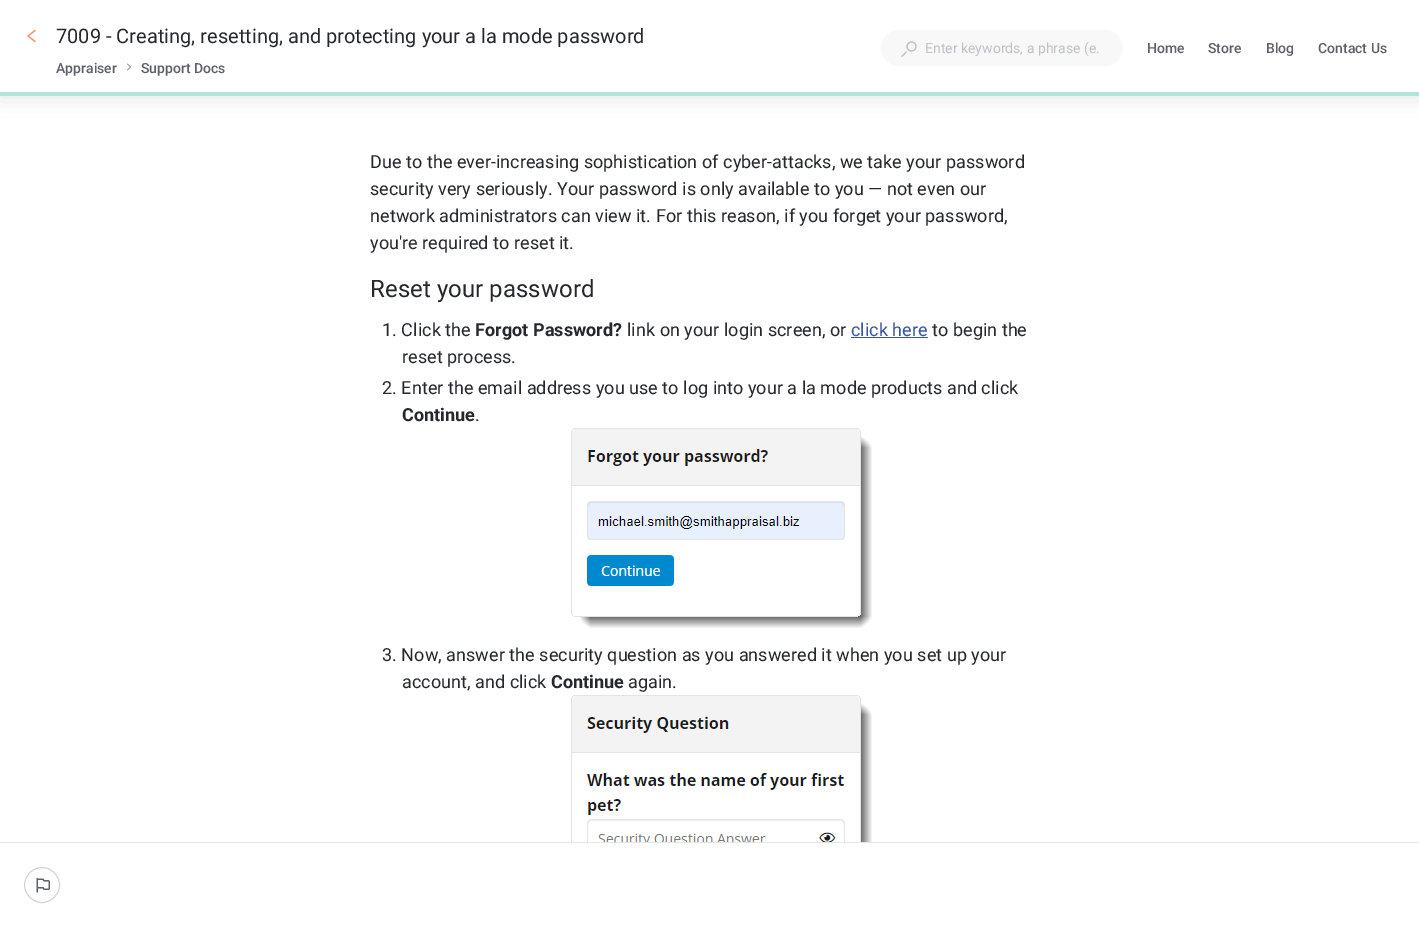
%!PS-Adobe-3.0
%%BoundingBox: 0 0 1419 926
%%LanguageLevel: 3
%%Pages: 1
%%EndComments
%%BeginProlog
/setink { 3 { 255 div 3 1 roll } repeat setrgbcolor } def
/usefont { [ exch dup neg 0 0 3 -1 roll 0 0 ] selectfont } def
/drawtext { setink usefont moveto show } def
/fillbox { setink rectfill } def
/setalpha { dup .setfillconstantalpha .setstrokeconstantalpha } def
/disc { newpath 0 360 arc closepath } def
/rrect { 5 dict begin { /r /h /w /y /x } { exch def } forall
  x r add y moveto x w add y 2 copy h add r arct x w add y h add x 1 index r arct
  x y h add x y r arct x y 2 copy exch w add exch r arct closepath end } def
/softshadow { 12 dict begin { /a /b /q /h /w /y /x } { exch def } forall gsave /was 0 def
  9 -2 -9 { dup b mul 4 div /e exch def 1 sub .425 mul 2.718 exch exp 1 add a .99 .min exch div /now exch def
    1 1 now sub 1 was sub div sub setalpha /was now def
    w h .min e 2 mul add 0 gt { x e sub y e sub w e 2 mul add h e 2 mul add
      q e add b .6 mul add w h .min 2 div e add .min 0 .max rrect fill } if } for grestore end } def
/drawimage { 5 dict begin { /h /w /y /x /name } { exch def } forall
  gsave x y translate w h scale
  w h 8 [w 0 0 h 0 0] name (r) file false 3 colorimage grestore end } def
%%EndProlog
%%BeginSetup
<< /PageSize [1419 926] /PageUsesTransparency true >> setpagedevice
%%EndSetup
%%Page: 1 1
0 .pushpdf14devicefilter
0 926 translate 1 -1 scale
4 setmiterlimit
0 0 1419 926 255 255 255 fillbox
0 0 0 setink
0 0 1419 96 0 10 0.12 softshadow
0 0 1419 92 255 255 255 fillbox
(assets/img1.rgb) 27 29 9 14 drawimage
(7009 - Creating, resetting, and protecting your a la mode password) 56 43 /Roboto-Regular 20 38 40 46 drawtext
(Appraiser) 56 73 /Roboto-Medium 14 93 97 105 drawtext
(assets/img2.rgb) 127 63 4 8 drawimage
(Support Docs) 141 73 /Roboto-Medium 14 93 97 105 drawtext
248 248 249 setink
881 30 242 36 18 rrect fill
(assets/img3.rgb) 901 41 16 16 drawimage
(Enter keywords, a phrase \(e.) 925 53 /Roboto-Regular 14 191 193 198 drawtext
(Home) 1147 53 /Roboto-Medium 14 93 97 105 drawtext
(Store) 1208 53 /Roboto-Medium 14 93 97 105 drawtext
(Blog) 1266 53 /Roboto-Medium 14 93 97 105 drawtext
(Contact Us) 1318 53 /Roboto-Medium 14 93 97 105 drawtext
0 92 1419 4 179 227 215 fillbox
/Roboto-Regular 18 usefont
38 40 46 setink
370 168 moveto 0.05 0 (Due to the ever‑increasing sophistication of cyber‑attacks, we take your password) ashow
370 195 moveto 0.05 0 (security very seriously. Your password is only available to you — not even our) ashow
370 222 moveto 0.05 0 (network administrators can view it. For this reason, if you forget your password,) ashow
370 249 moveto 0.05 0 (you're required to reset it.) ashow
/Roboto-Regular 24 usefont
370 297 moveto 0.05 0 (Reset your password) ashow
/Roboto-Regular 18 usefont
382 336 moveto 0.05 0 (1. Click the) ashow
/Roboto-Bold 18 usefont
475 336 moveto 0.05 0 (Forgot Password?) ashow
/Roboto-Regular 18 usefont
627 336 moveto 0.05 0 (link on your login screen, or) ashow
56 84 167 setink
851 336 moveto 0.05 0 (click here) ashow
851 337 77 1 56 84 167 fillbox
38 40 46 setink
932 336 moveto 0.05 0 (to begin the) ashow
402 363 moveto 0.05 0 (reset process.) ashow
382 394 moveto 0.05 0 (2. Enter the email address you use to log into your a la mode products and click) ashow
/Roboto-Bold 18 usefont
402 421 moveto 0.05 0 (Continue) ashow
/Roboto-Regular 18 usefont
475 421 moveto 0.05 0 (.) ashow
(assets/img4.rgb) 571 428 301 200 drawimage
382 661 moveto 0.05 0 (3. Now, answer the security question as you answered it when you set up your) ashow
402 688 moveto 0.05 0 (account, and click) ashow
/Roboto-Bold 18 usefont
551 688 moveto 0.05 0 (Continue) ashow
/Roboto-Regular 18 usefont
628 688 moveto 0.05 0 (again.) ashow
(assets/img5.rgb) 571 695 301 147 drawimage
0 842 1419 1 227 229 233 fillbox
211 213 218 setink
42 885 17.5 disc stroke
(assets/img6.rgb) 36 877 14 16 drawimage
.poppdf14devicefilter showpage
%%EOF
